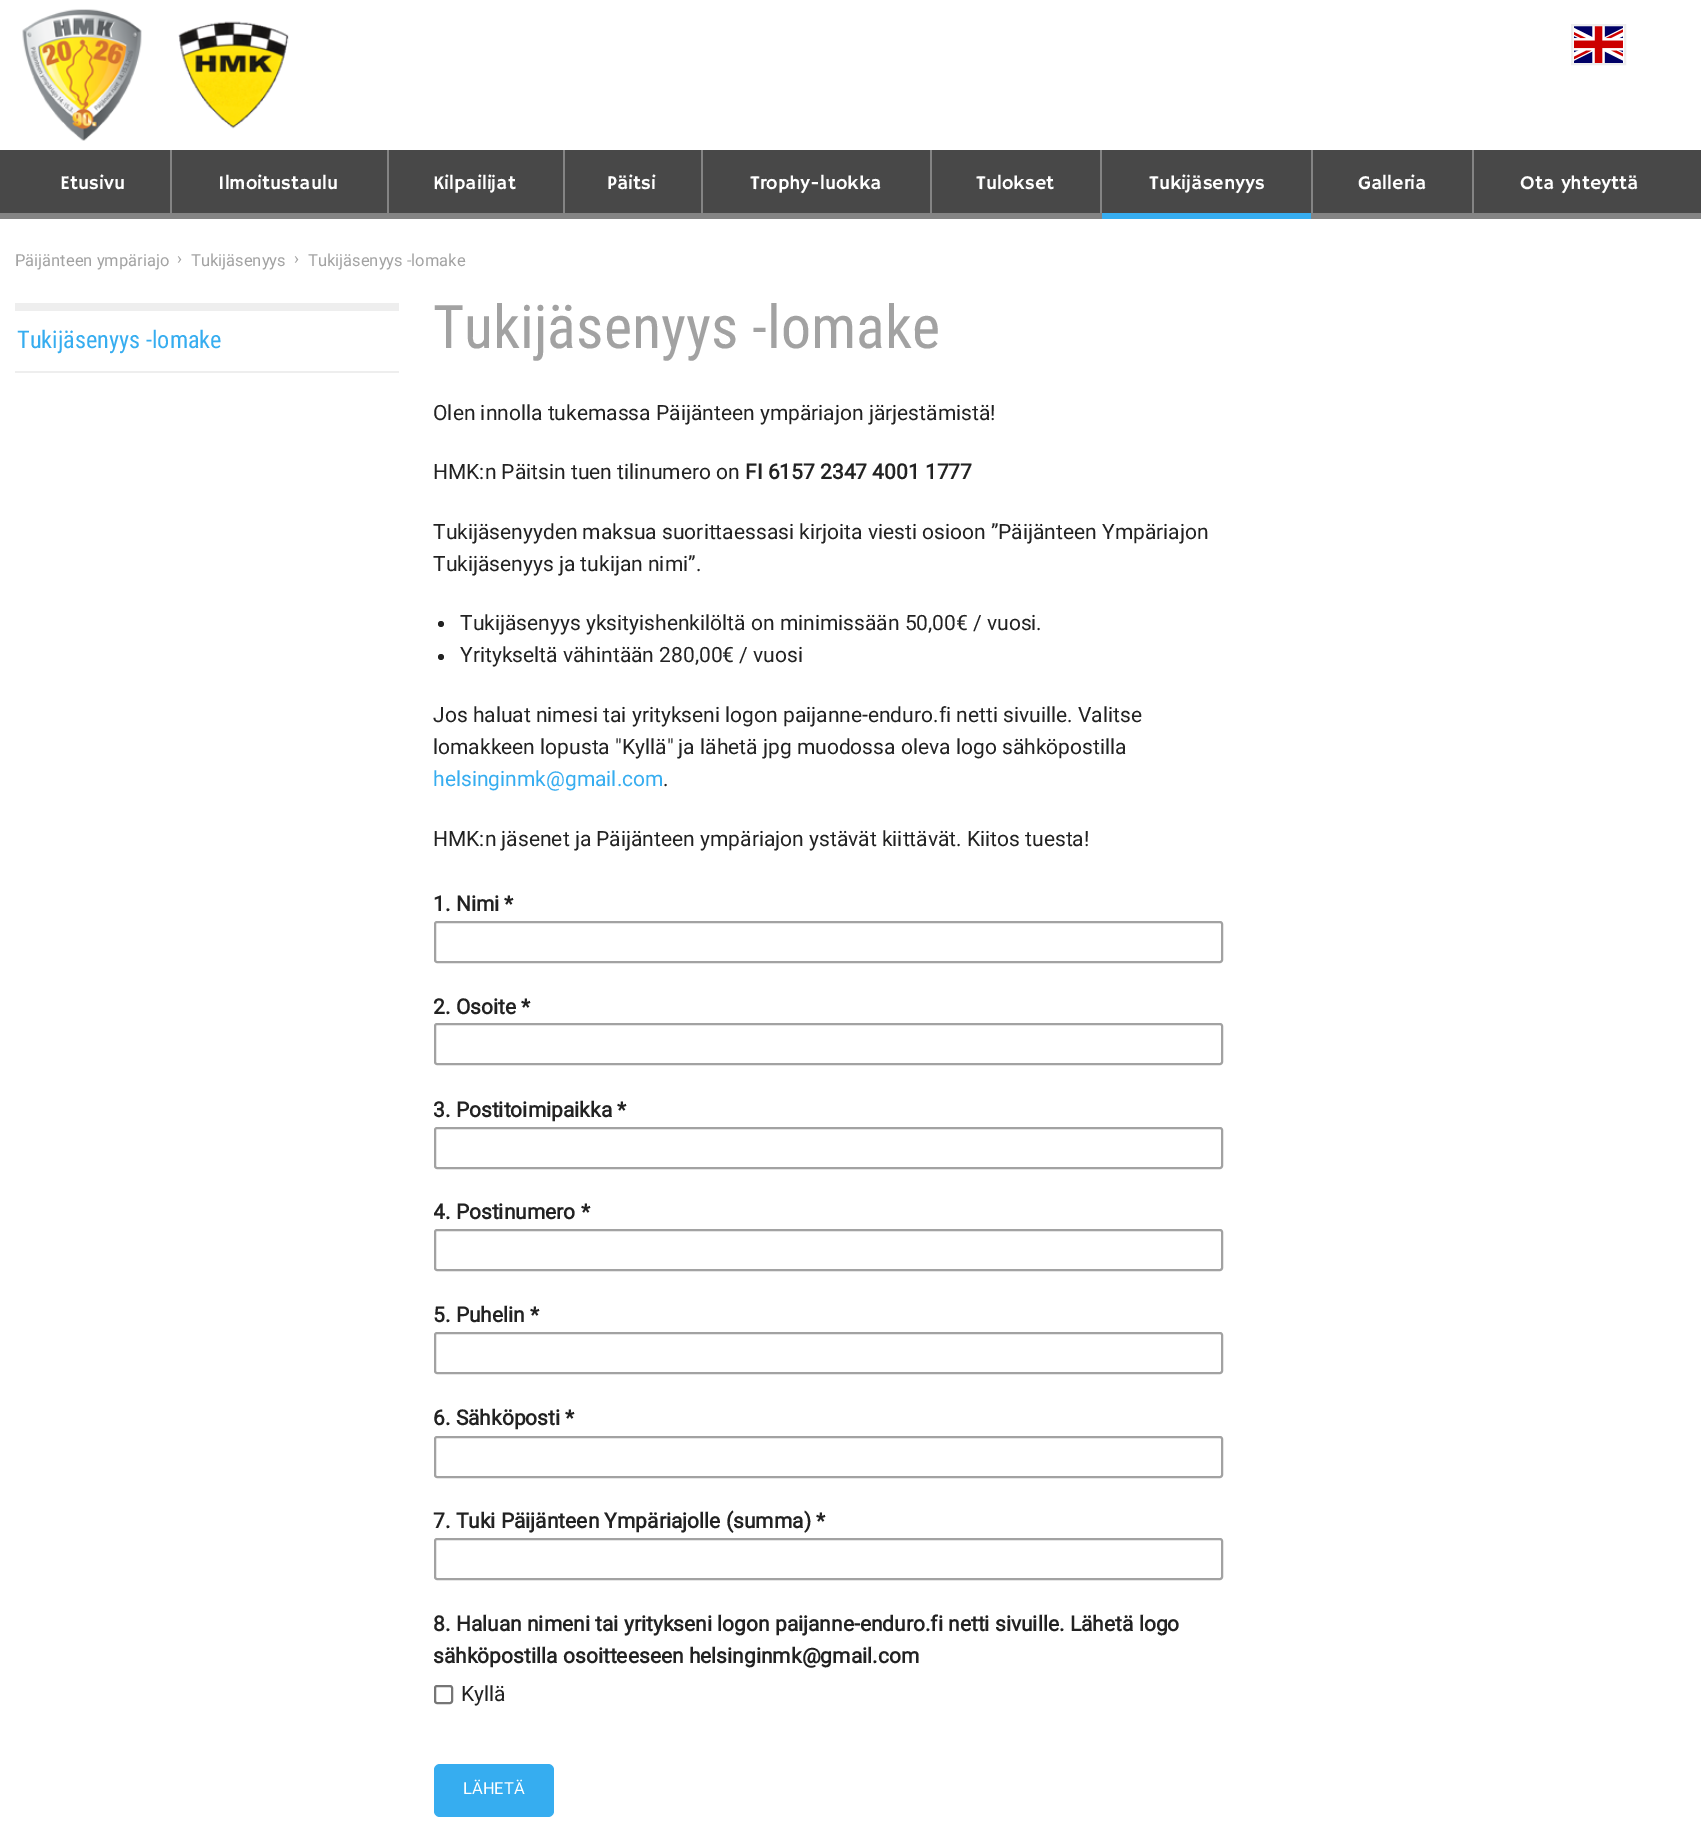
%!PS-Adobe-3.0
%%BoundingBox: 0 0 1701 1843
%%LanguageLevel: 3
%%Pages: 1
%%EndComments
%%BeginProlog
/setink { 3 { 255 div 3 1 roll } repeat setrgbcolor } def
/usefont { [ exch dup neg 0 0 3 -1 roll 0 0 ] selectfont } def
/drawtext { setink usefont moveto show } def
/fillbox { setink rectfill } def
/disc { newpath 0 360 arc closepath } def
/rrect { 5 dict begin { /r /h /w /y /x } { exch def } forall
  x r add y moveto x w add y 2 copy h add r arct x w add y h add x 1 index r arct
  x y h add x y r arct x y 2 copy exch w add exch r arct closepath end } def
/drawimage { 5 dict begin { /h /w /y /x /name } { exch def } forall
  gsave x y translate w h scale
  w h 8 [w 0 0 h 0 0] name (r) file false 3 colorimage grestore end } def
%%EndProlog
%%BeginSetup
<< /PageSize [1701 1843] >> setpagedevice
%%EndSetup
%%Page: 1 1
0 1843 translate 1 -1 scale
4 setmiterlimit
0 0 1701 1843 255 255 255 fillbox
(assets/img1.rgb) 22 9 120 132 drawimage
(assets/img2.rgb) 178 21 111 108 drawimage
(assets/img3.rgb) 1574 26 49 37 drawimage
238 238 238 setink
2 setlinewidth
1572 25 53 39 rectstroke
0 213 1701 6 132 132 132 fillbox
0 150 1701 63 72 72 72 fillbox
(Etusivu) 60 189 /HammersmithOne-Regular 19.5 255 255 255 drawtext
170 150 2 69 132 132 132 fillbox
(Ilmoitustaulu) 218 189 /HammersmithOne-Regular 19.5 255 255 255 drawtext
387 150 2 69 132 132 132 fillbox
(Kilpailijat) 433 189 /HammersmithOne-Regular 19.5 255 255 255 drawtext
563 150 2 69 132 132 132 fillbox
(Päitsi) 607 189 /HammersmithOne-Regular 19.5 255 255 255 drawtext
701 150 2 69 132 132 132 fillbox
(Trophy-luokka) 750 189 /HammersmithOne-Regular 19.5 255 255 255 drawtext
930 150 2 69 132 132 132 fillbox
(Tulokset) 976 189 /HammersmithOne-Regular 19.5 255 255 255 drawtext
1100 213 211 6 54 173 240 fillbox
1100 150 2 69 132 132 132 fillbox
(Tukijäsenyys) 1149 189 /HammersmithOne-Regular 19.5 255 255 255 drawtext
1311 150 2 69 132 132 132 fillbox
(Galleria) 1358 189 /HammersmithOne-Regular 19.5 255 255 255 drawtext
1472 150 2 69 132 132 132 fillbox
(Ota yhteyttä) 1520 189 /HammersmithOne-Regular 19.5 255 255 255 drawtext
(Päijänteen ympäriajo) 15 266 /Roboto-Regular 16.5 162 162 162 drawtext
(›) 177 264 /Roboto-Regular 16.5 162 162 162 drawtext
(Tukijäsenyys) 191 266 /Roboto-Regular 16.5 162 162 162 drawtext
(›) 294 264 /Roboto-Regular 16.5 162 162 162 drawtext
(Tukijäsenyys -lomake) 308 266 /Roboto-Regular 16.5 162 162 162 drawtext
15 303 384 8 238 238 238 fillbox
15 371 384 2 238 238 238 fillbox
(Tukijäsenyys -lomake) 17 348 /RobotoCondensed-Regular 24.25 54 173 240 drawtext
(Tukijäsenyys -lomake) 433 348 /RobotoCondensed-Regular 60 162 162 162 drawtext
(Olen innolla tukemassa Päijänteen ympäriajon järjestämistä!) 433 420 /Roboto-Regular 21 34 34 34 drawtext
(HMK:n Päitsin tuen tilinumero on) 433 479 /Roboto-Regular 21 34 34 34 drawtext
(FI 6157 2347 4001 1777) 745 479 /Roboto-Bold 21 34 34 34 drawtext
(Tukijäsenyyden maksua suorittaessasi kirjoita viesti osioon ”Päijänteen Ympäriajon) 433 539 /Roboto-Regular 21 34 34 34 drawtext
(Tukijäsenyys ja tukijan nimi”.) 433 571 /Roboto-Regular 21 34 34 34 drawtext
441 624 3 disc fill
(Tukijäsenyys yksityishenkilöltä on minimissään 50,00€ / vuosi.) 460 630 /Roboto-Regular 21 34 34 34 drawtext
441 657 3 disc fill
(Yritykseltä vähintään 280,00€ / vuosi) 460 662 /Roboto-Regular 21 34 34 34 drawtext
(Jos haluat nimesi tai yritykseni logon paijanne-enduro.fi netti sivuille. Valitse) 433 722 /Roboto-Regular 21 34 34 34 drawtext
(lomakkeen lopusta "Kyllä" ja lähetä jpg muodossa oleva logo sähköpostilla) 433 754 /Roboto-Regular 21 34 34 34 drawtext
(helsinginmk@gmail.com) 433 786 /Roboto-Regular 21 54 173 240 drawtext
(.) 663 786 /Roboto-Regular 21 34 34 34 drawtext
(HMK:n jäsenet ja Päijänteen ympäriajon ystävät kiittävät. Kiitos tuesta!) 433 846 /Roboto-Regular 21 34 34 34 drawtext
(1. Nimi *) 433 911 /Roboto-Bold 21 34 34 34 drawtext
162 162 162 setink
435 922 787 40 2 rrect stroke
(2. Osoite *) 433 1014 /Roboto-Bold 21 34 34 34 drawtext
162 162 162 setink
435 1024 787 40 2 rrect stroke
(3. Postitoimipaikka *) 433 1117 /Roboto-Bold 21 34 34 34 drawtext
162 162 162 setink
435 1128 787 40 2 rrect stroke
gsave
434 1191 789 80 rectclip
(4. Postinumero *) 433 1219 /Roboto-Bold 21 34 34 34 drawtext
grestore
435 1230 787 40 2 rrect stroke
(5. Puhelin *) 433 1322 /Roboto-Bold 21 34 34 34 drawtext
162 162 162 setink
435 1333 787 40 2 rrect stroke
(6. Sähköposti *) 433 1425 /Roboto-Bold 21 34 34 34 drawtext
162 162 162 setink
435 1437 787 40 2 rrect stroke
(7. Tuki Päijänteen Ympäriajolle \(summa\) *) 433 1528 /Roboto-Bold 21 34 34 34 drawtext
162 162 162 setink
435 1539 787 40 2 rrect stroke
(8. Haluan nimeni tai yritykseni logon paijanne-enduro.fi netti sivuille. Lähetä logo) 433 1631 /Roboto-Bold 21 34 34 34 drawtext
(sähköpostilla osoitteeseen helsinginmk@gmail.com) 433 1663 /Roboto-Bold 21 34 34 34 drawtext
118 118 118 setink
435 1686 17 17 2 rrect stroke
(Kyllä) 461 1701 /Roboto-Regular 21 34 34 34 drawtext
54 173 240 setink
434 1764 120 53 6 rrect fill
(LÄHETÄ) 463 1794 /Roboto-Regular 16.5 255 255 255 drawtext
showpage
%%EOF
